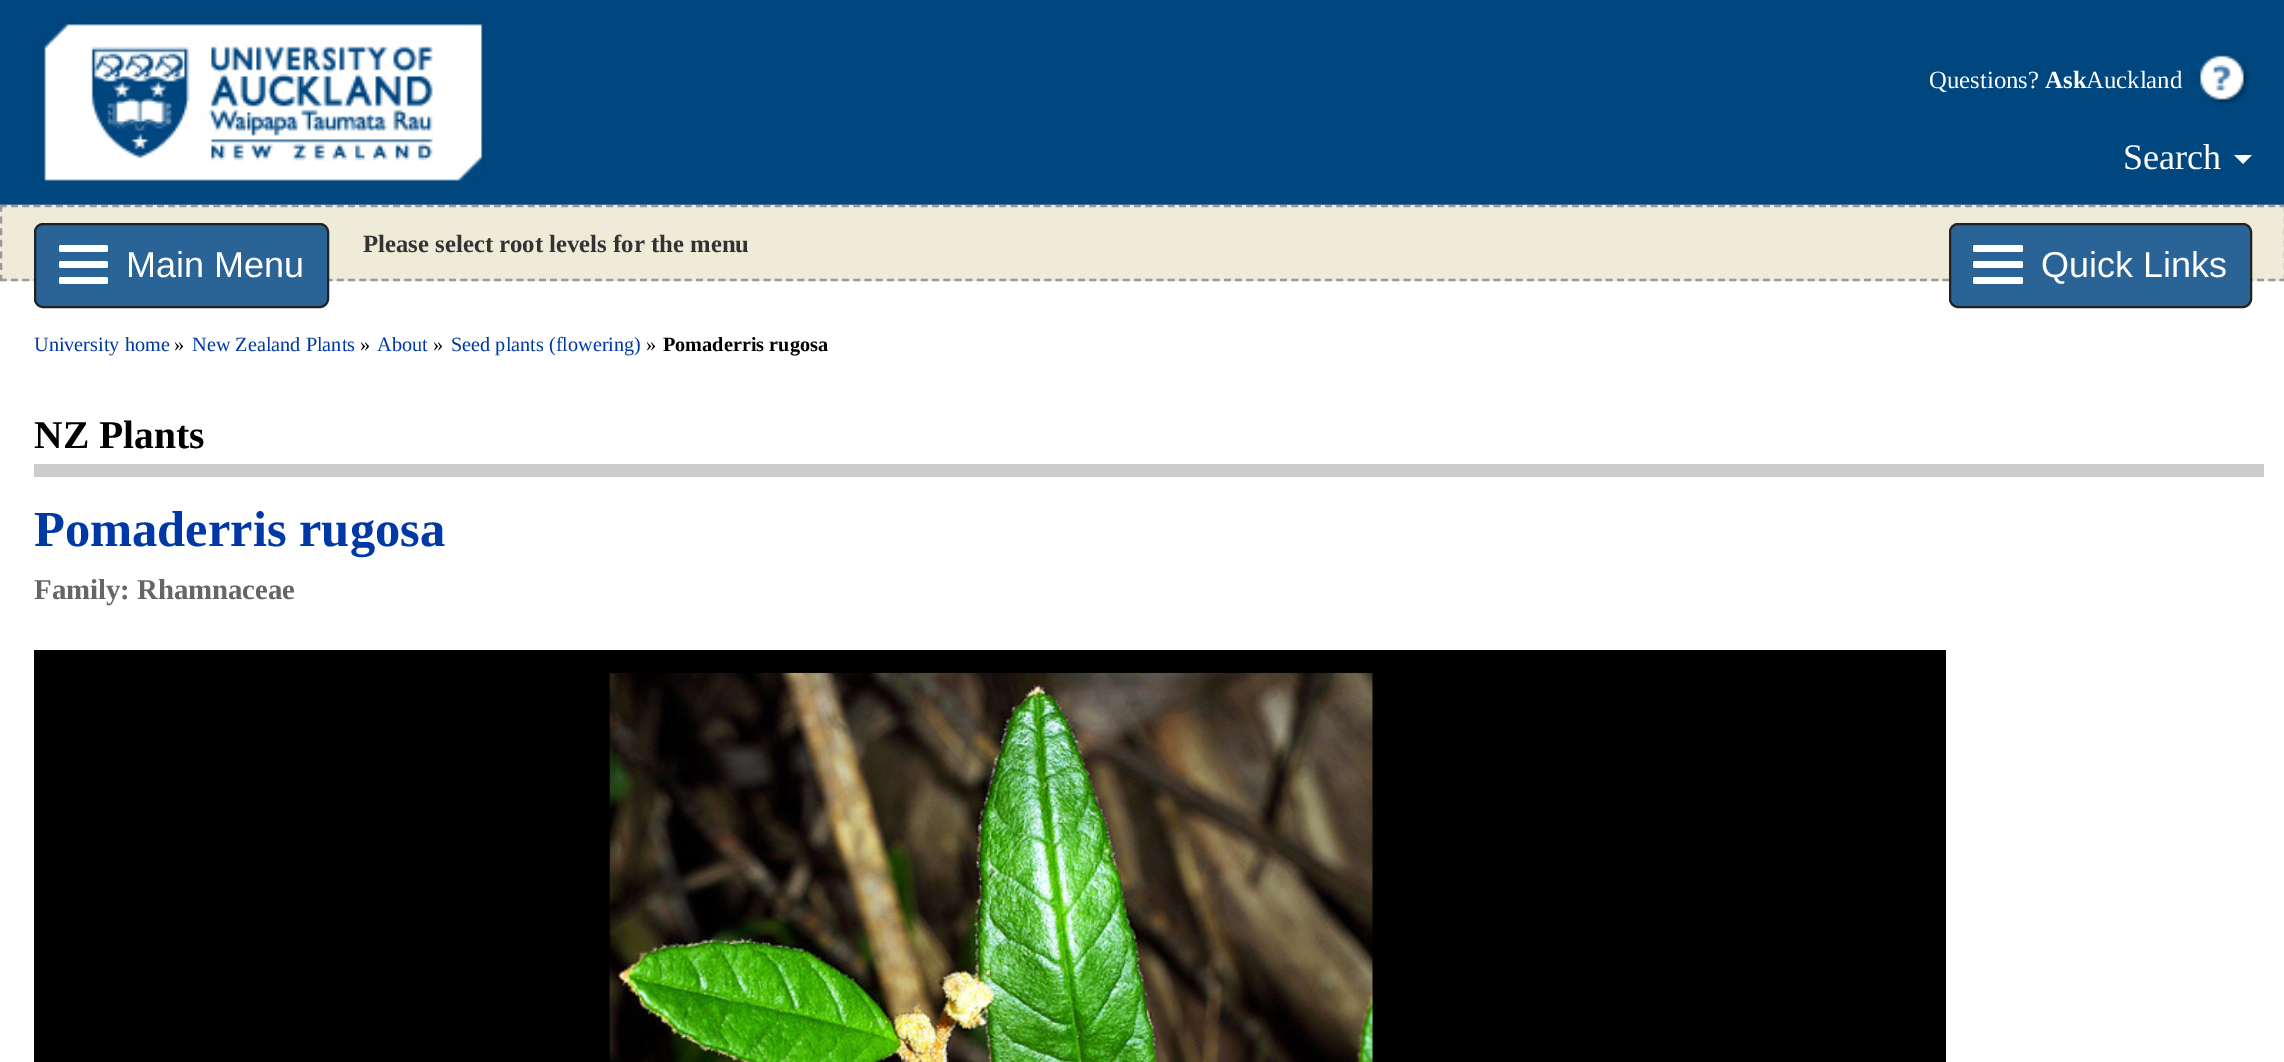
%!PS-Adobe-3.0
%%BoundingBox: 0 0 2284 1062
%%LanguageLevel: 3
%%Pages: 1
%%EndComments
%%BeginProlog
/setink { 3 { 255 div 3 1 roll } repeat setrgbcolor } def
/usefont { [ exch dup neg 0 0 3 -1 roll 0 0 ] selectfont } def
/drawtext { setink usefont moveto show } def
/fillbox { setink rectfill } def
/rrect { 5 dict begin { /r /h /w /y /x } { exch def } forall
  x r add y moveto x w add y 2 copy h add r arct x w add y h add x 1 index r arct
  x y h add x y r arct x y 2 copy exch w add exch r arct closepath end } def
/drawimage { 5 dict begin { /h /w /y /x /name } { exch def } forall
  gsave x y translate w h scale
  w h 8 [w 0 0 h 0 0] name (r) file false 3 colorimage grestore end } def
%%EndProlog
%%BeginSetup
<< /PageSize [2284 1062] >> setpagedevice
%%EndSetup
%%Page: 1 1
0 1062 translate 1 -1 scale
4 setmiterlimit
0 0 2284 1062 255 255 255 fillbox
0 205 2284 76 238 236 216 fillbox
153 153 153 setink
2.2 setlinewidth
[6.75 4.48] 0 setdash
0 206 moveto 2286 206 lineto stroke
(assets/img1.rgb) 0 0 2284 205 drawimage
(assets/img2.rgb) 2198 54 52 52 drawimage
(Questions?) 1929 88 /LiberationSerif-Regular 24.75 255 255 255 drawtext
(Ask) 2045 88 /LiberationSerif-Bold 24.75 255 255 255 drawtext
(Auckland) 2086 88 /LiberationSerif-Regular 24.75 255 255 255 drawtext
(Search) 2123 169 /LiberationSerif-Regular 36 255 255 255 drawtext
2234 155 moveto 2252 155 lineto 2243 164 lineto closepath fill
153 153 153 setink
[6.75 4.88] 0 setdash
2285 205 moveto 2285 281 lineto stroke
[6.75 4.48] 0 setdash
0 280 moveto 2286 280 lineto stroke
[6.75 4.88] 0 setdash
1 205 moveto 1 281 lineto stroke
(Please select root levels for the menu) 363 252 /LiberationSerif-Bold 24.75 51 51 51 drawtext
42 100 150 setink
35 224 293 83 8 rrect gsave fill grestore
34 34 34 setink
2 setlinewidth
[] 0 setdash
stroke
255 255 255 setink
59 245 49 7 2 rrect fill
59 261 49 7 2 rrect fill
(Main Menu) 126 277 /LiberationSans-Regular 36 255 255 255 drawtext
59 277 49 7 2 rrect fill
42 100 150 setink
1950 224 301 83 8 rrect gsave fill grestore
34 34 34 setink
stroke
255 255 255 setink
1973 245 50 7 2 rrect fill
1973 261 50 7 2 rrect fill
(Quick Links) 2041 277 /LiberationSans-Regular 36 255 255 255 drawtext
1973 277 50 7 2 rrect fill
(University home) 34 351 /LiberationSerif-Regular 20.25 0 57 166 drawtext
(») 174 351 /LiberationSerif-Regular 20.25 0 0 0 drawtext
(New Zealand Plants) 192 351 /LiberationSerif-Regular 20.25 0 57 166 drawtext
(») 360 351 /LiberationSerif-Regular 20.25 0 0 0 drawtext
(About) 377 351 /LiberationSerif-Regular 20.25 0 57 166 drawtext
(») 433 351 /LiberationSerif-Regular 20.25 0 0 0 drawtext
(Seed plants \(flowering\)) 451 351 /LiberationSerif-Regular 20.25 0 57 166 drawtext
(») 646 351 /LiberationSerif-Regular 20.25 0 0 0 drawtext
(Pomaderris rugosa) 663 351 /LiberationSerif-Bold 20.25 0 0 0 drawtext
(NZ Plants) 34 448 /LiberationSerif-Bold 39.5 0 0 0 drawtext
34 464 2230 13 204 204 204 fillbox
(Pomaderris rugosa) 34 546 /LiberationSerif-Bold 50.5 0 57 166 drawtext
(Family: Rhamnaceae) 34 599 /LiberationSerif-Bold 28.75 102 102 102 drawtext
34 650 1912 412 0 0 0 fillbox
(assets/img3.rgb) 609 672 764 390 drawimage
showpage
%%EOF
